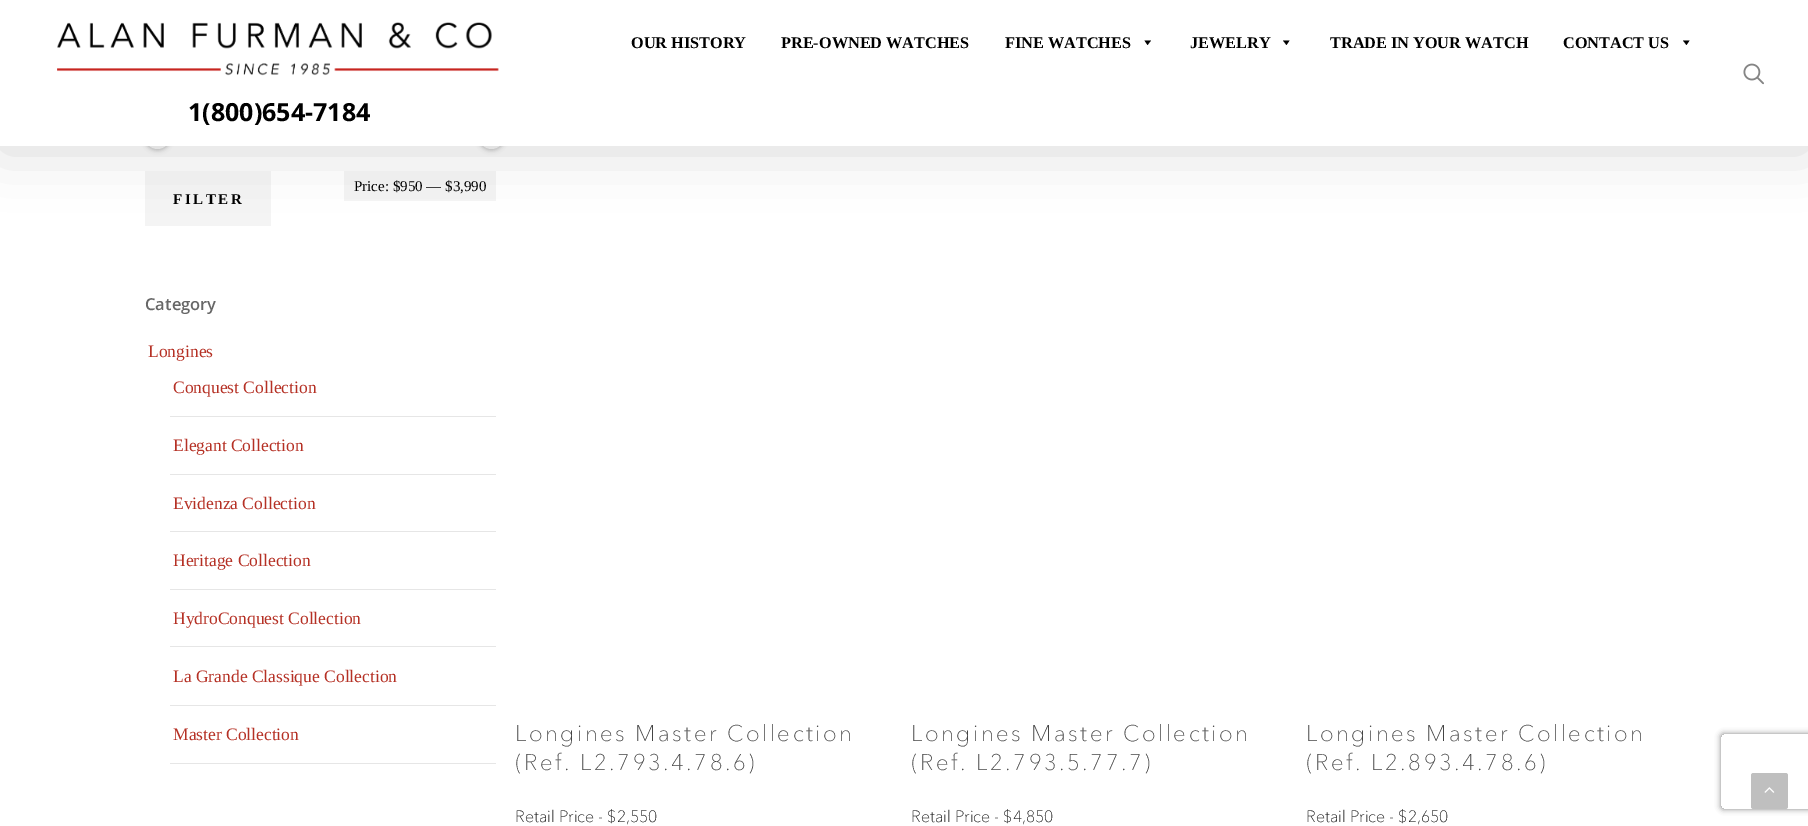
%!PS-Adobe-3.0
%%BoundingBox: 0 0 1808 826
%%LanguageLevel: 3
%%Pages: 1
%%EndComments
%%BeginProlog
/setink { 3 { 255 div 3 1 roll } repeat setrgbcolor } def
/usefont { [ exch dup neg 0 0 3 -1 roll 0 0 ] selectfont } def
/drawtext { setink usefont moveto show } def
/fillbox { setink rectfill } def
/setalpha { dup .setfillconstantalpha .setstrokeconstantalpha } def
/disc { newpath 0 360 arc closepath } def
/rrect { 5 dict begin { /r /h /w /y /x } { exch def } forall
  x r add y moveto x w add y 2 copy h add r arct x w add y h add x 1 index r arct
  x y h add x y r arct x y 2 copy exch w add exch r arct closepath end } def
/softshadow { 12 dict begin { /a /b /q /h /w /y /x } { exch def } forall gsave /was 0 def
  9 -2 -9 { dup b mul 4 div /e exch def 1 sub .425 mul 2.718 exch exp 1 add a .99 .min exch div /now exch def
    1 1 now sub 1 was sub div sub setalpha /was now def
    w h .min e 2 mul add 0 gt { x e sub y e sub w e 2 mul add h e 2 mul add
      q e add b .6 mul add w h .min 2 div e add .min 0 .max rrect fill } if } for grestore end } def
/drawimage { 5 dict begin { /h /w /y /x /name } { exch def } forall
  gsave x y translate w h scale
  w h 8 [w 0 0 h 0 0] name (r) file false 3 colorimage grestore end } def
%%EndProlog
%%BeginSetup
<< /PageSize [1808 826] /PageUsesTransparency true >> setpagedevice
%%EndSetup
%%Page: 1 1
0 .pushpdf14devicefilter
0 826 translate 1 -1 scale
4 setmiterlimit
0 0 1808 826 255 255 255 fillbox
0 0 0 setink
145 125 25 25 12.5 2.5 0.25 softshadow
245 245 245 setink
157.5 136.5 12.5 disc fill
0 0 0 setink
479 125 25 25 12.5 2.5 0.25 softshadow
245 245 245 setink
491.5 136.5 12.5 disc fill
344 171 152 30 244 244 244 fillbox
145 171 126 55 244 244 244 fillbox
0 0 0 setink
0 4 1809 146 0 28 0.15 softshadow
0 0 1808 146 255 255 255 fillbox
(OUR HISTORY) 631 48 /LiberationSerif-Bold 16.25 0 0 0 drawtext
(PRE-OWNED WATCHES) 781 48 /LiberationSerif-Bold 16.25 0 0 0 drawtext
(FINE WATCHES) 1005 48 /LiberationSerif-Bold 16.25 0 0 0 drawtext
1151 40.5 moveto 1147.5 45 lineto 1144.5 40.5 lineto closepath fill
(JEWELRY) 1190 48 /LiberationSerif-Bold 16.25 0 0 0 drawtext
1289.5 40.5 moveto 1286.5 45 lineto 1283 40.5 lineto closepath fill
(TRADE IN YOUR WATCH) 1330 48 /LiberationSerif-Bold 16.25 0 0 0 drawtext
(CONTACT US) 1563 48 /LiberationSerif-Bold 16.25 0 0 0 drawtext
1689.5 40.5 moveto 1686.5 45 lineto 1683 40.5 lineto closepath fill
(assets/img1.rgb) 1743 63 21 22 drawimage
(assets/img2.rgb) 57 22 442 54 drawimage
(1\(800\)654-7184) 188 121 /OpenSans-Bold 25 0 0 0 drawtext
(Price: $950 — $3,990) 354 191 /LiberationSerif-Regular 15 0 0 0 drawtext
/LiberationSerif-Bold 15 usefont
173 204 moveto 2.5 0 (FILTER) ashow
(Category) 145 310 /OpenSans-SemiBold 16.5 103 103 103 drawtext
(Longines) 148 357 /LiberationSerif-Regular 17.5 181 49 37 drawtext
170 416 326 1 230 230 230 fillbox
(Conquest Collection) 173 393 /LiberationSerif-Regular 17.5 181 49 37 drawtext
170 474 326 1 230 230 230 fillbox
(Elegant Collection) 173 451 /LiberationSerif-Regular 17.5 181 49 37 drawtext
170 531 326 1 230 230 230 fillbox
(Evidenza Collection) 173 509 /LiberationSerif-Regular 17.5 181 49 37 drawtext
170 589 326 1 230 230 230 fillbox
(Heritage Collection) 173 566 /LiberationSerif-Regular 17.5 181 49 37 drawtext
170 646 326 1 230 230 230 fillbox
(HydroConquest Collection) 173 624 /LiberationSerif-Regular 17.5 181 49 37 drawtext
170 705 326 1 230 230 230 fillbox
(La Grande Classique Collection) 173 682 /LiberationSerif-Regular 17.5 181 49 37 drawtext
170 763 326 1 230 230 230 fillbox
(Master Collection) 173 740 /LiberationSerif-Regular 17.5 181 49 37 drawtext
/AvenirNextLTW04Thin-Thin 22.5 usefont
68 68 68 setink
515 741 moveto 2.5 0 (Longines Master Collection) ashow
515 770 moveto 2.5 0 (\(Ref. L2.793.4.78.6\)) ashow
(Retail Price - $2,550) 515 822 /AvenirNextLTW04Thin-Thin 16.25 0 0 0 drawtext
/AvenirNextLTW04Thin-Thin 22.5 usefont
68 68 68 setink
911 741 moveto 2.5 0 (Longines Master Collection) ashow
911 770 moveto 2.5 0 (\(Ref. L2.793.5.77.7\)) ashow
(Retail Price - $4,850) 911 822 /AvenirNextLTW04Thin-Thin 16.25 0 0 0 drawtext
/AvenirNextLTW04Thin-Thin 22.5 usefont
68 68 68 setink
1306 741 moveto 2.5 0 (Longines Master Collection) ashow
1306 770 moveto 2.5 0 (\(Ref. L2.893.4.78.6\)) ashow
(Retail Price - $2,650) 1306 822 /AvenirNextLTW04Thin-Thin 16.25 0 0 0 drawtext
gsave
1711 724 moveto 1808 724 lineto 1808 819 lineto 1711 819 lineto closepath 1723.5 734 moveto 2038.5 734 lineto 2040 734 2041 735 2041 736.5 curveto 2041 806.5 lineto 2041 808 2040 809 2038.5 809 curveto 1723.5 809 lineto 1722 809 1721 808 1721 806.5 curveto 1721 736.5 lineto 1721 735 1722 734 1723.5 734 curveto closepath eoclip newpath
128 128 128 setink
1721 734 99 75 2.5 3 1 softshadow
grestore
0.25 setalpha
1751 773 37 36 2.5 rrect fill
1 setalpha
(assets/img3.rgb) 1764 787 11 6 drawimage
.poppdf14devicefilter showpage
%%EOF
